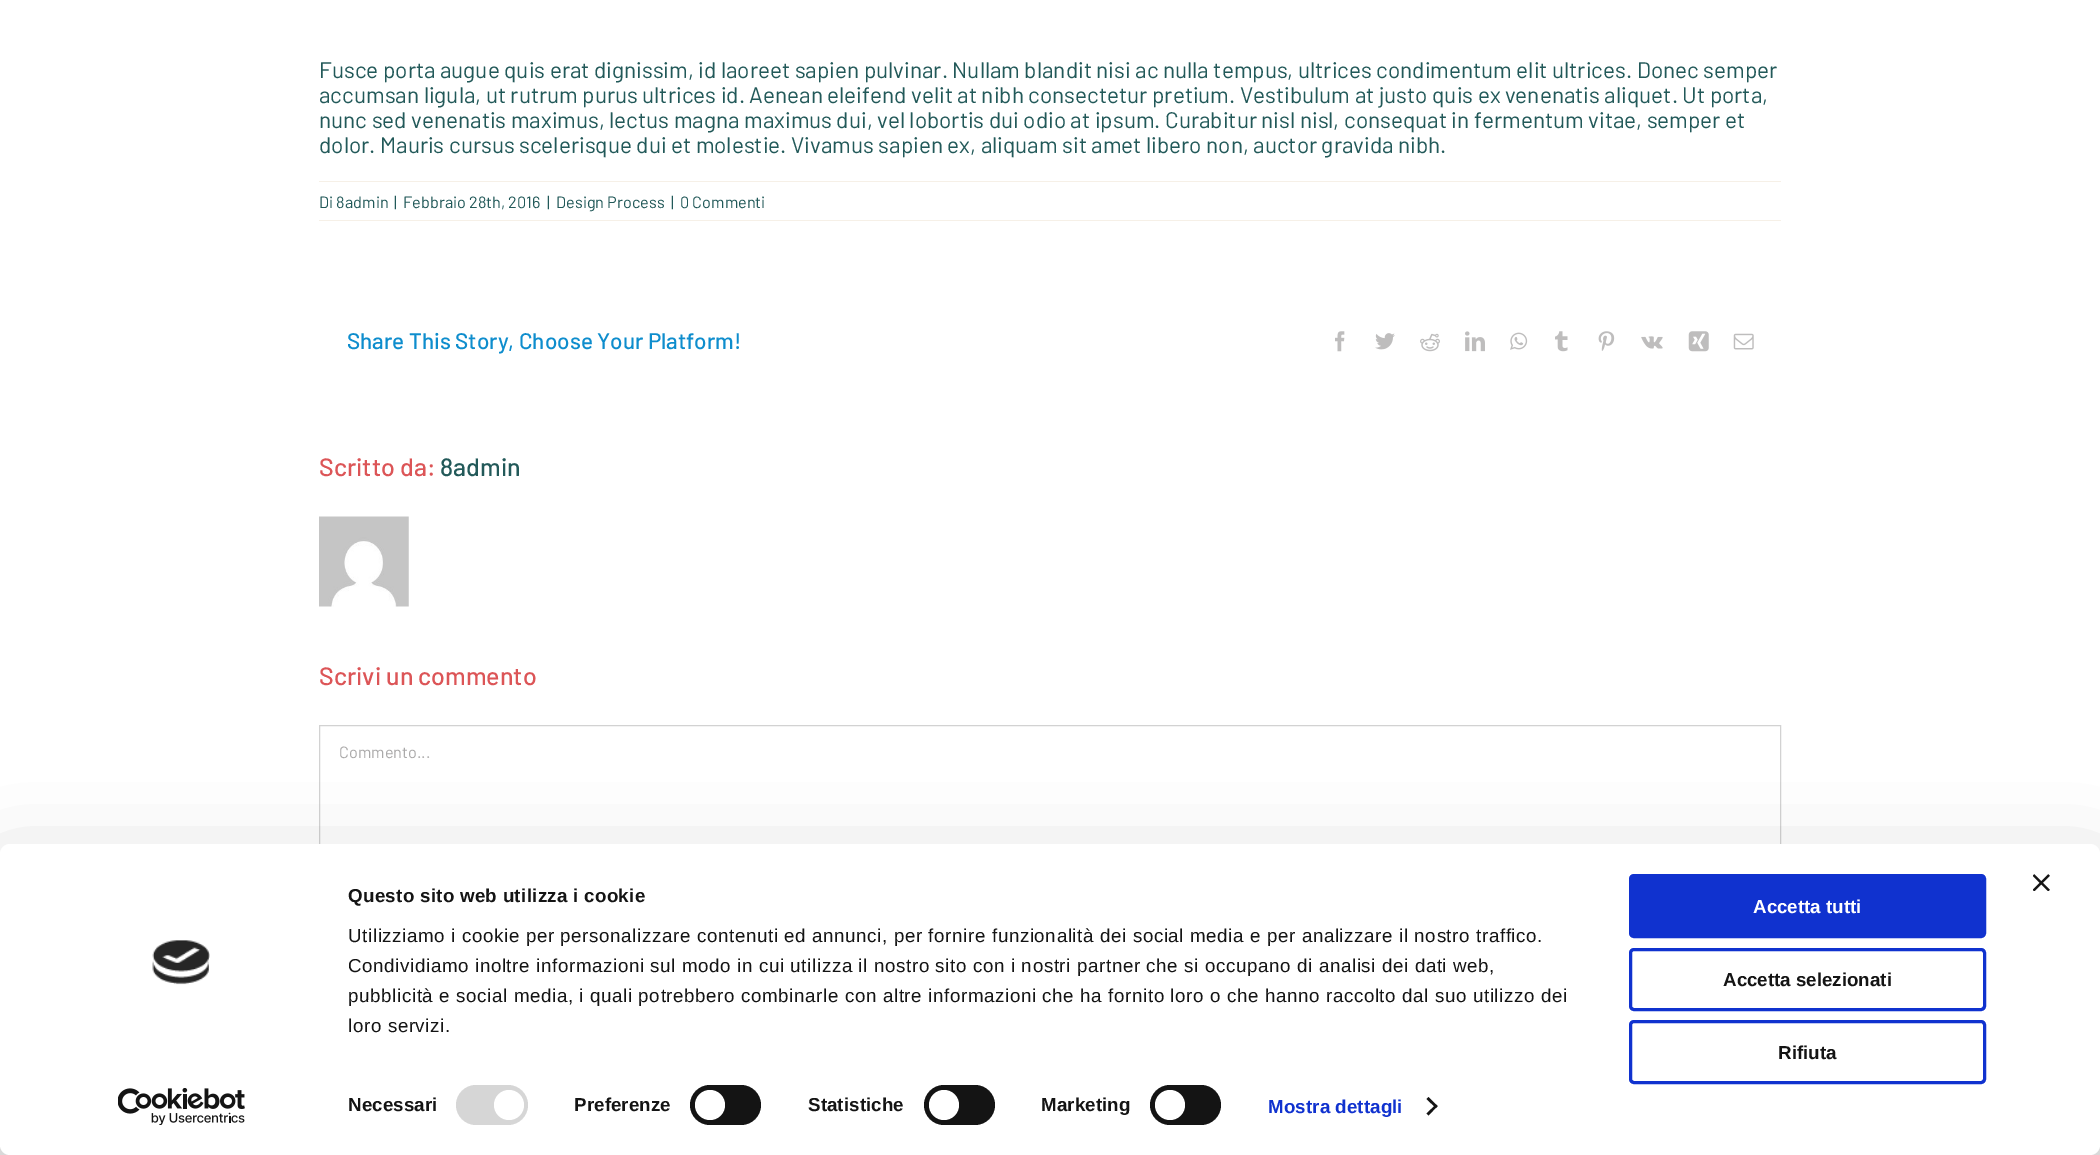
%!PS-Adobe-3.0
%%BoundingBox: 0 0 2100 1155
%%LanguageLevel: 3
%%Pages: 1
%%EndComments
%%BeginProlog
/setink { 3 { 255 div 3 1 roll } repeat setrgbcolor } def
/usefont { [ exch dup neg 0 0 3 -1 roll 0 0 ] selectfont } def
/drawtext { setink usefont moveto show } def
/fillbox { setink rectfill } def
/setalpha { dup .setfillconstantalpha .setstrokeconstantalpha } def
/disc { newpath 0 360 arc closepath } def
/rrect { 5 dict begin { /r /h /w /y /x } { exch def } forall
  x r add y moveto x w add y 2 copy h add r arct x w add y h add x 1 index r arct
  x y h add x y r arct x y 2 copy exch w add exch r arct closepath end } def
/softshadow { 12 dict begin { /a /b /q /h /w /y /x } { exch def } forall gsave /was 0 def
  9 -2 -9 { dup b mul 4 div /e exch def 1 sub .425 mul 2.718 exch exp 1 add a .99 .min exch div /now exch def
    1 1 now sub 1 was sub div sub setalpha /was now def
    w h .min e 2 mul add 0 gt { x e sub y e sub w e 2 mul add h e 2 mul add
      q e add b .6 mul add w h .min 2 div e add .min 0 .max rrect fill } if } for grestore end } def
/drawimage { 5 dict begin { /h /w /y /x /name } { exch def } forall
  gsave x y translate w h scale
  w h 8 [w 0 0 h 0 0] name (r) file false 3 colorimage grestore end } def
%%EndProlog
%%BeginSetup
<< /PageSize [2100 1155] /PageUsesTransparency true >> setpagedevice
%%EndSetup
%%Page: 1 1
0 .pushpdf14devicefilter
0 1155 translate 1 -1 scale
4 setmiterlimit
0 0 2100 1155 255 255 255 fillbox
(Fusce porta augue quis erat dignissim, id laoreet sapien pulvinar. Nullam blandit nisi ac nulla tempus, ultrices condimentum elit ultrices. Donec semper) 319 78 /Barlow-Regular 22.5 34 89 89 drawtext
(accumsan ligula, ut rutrum purus ultrices id. Aenean eleifend velit at nibh consectetur pretium. Vestibulum at justo quis ex venenatis aliquet. Ut porta,) 319 103 /Barlow-Regular 22.5 34 89 89 drawtext
(nunc sed venenatis maximus, lectus magna maximus dui, vel lobortis dui odio at ipsum. Curabitur nisl nisl, consequat in fermentum vitae, semper et) 319 128 /Barlow-Regular 22.5 34 89 89 drawtext
(dolor. Mauris cursus scelerisque dui et molestie. Vivamus sapien ex, aliquam sit amet libero non, auctor gravida nibh.) 319 153 /Barlow-Regular 22.5 34 89 89 drawtext
319 181 1462 1 246 240 231 fillbox
319 220 1462 1 246 240 231 fillbox
(Di 8admin) 319 208 /Barlow-Regular 16.25 34 89 89 drawtext
(|) 394 208 /Barlow-Regular 16.25 34 89 89 drawtext
(Febbraio 28th, 2016) 403 208 /Barlow-Regular 16.25 34 89 89 drawtext
(|) 547 208 /Barlow-Regular 16.25 34 89 89 drawtext
(Design Process) 556 208 /Barlow-Regular 16.25 34 89 89 drawtext
(|) 671 208 /Barlow-Regular 16.25 34 89 89 drawtext
(0 Commenti) 680 208 /Barlow-Regular 16.25 34 89 89 drawtext
(Share This Story, Choose Your Platform!) 347 349 /Barlow-Medium 22.5 14 141 205 drawtext
(assets/img1.rgb) 1335 331 10 21 drawimage
(assets/img2.rgb) 1375 333 20 17 drawimage
(assets/img3.rgb) 1420 333 20 19 drawimage
(assets/img4.rgb) 1465 331 20 21 drawimage
(assets/img5.rgb) 1510 332 18 18 drawimage
(assets/img6.rgb) 1555 331 13 21 drawimage
(assets/img7.rgb) 1598 331 17 20 drawimage
(assets/img8.rgb) 1641 336 22 13 drawimage
(assets/img9.rgb) 1688 331 21 21 drawimage
(assets/img10.rgb) 1733 333 21 17 drawimage
(Scritto da:) 319 476 /Barlow-Medium 25 220 85 87 drawtext
(8admin) 440 476 /Barlow-Medium 25 34 89 89 drawtext
(assets/img11.rgb) 319 516 90 91 drawimage
(Scrivi un commento) 319 685 /Barlow-Medium 25 220 85 87 drawtext
210 210 210 setink
319.5 725.5 1461 187 rectstroke
(Commento...) 339 758 /Barlow-Regular 16.25 170 169 169 drawtext
0 0 0 setink
0 881 2100 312 10 44 0.3 softshadow
255 255 255 setink
0 844 2100 311 10 rrect fill
(assets/img12.rgb) 2033 874 17 17 drawimage
(assets/img13.rgb) 152 940 58 45 drawimage
(assets/img14.rgb) 118 1088 127 37 drawimage
/LiberationSans-Bold 18.75 usefont
20 20 20 setink
348 902 moveto 0.3 0 (Questo sito web utilizza i cookie) ashow
/LiberationSans-Regular 18.75 usefont
348 942 moveto 0.62 0 (Utilizziamo i cookie per personalizzare contenuti ed annunci, per fornire funzionalità dei social media e per analizzare il nostro traffico.) ashow
348 972 moveto 0.62 0 (Condividiamo inoltre informazioni sul modo in cui utilizza il nostro sito con i nostri partner che si occupano di analisi dei dati web,) ashow
348 1002 moveto 0.62 0 (pubblicità e social media, i quali potrebbero combinarle con altre informazioni che ha fornito loro o che hanno raccolto dal suo utilizzo dei) ashow
348 1032 moveto 0.62 0 (loro servizi.) ashow
/LiberationSans-Bold 18.75 usefont
348 1111 moveto 0.1 0 (Necessari) ashow
214 214 214 setink
456 1085 72 40 20 rrect fill
255 255 255 setink
509 1105 15 disc fill
20 20 20 setink
574 1111 moveto 0.1 0 (Preferenze) ashow
690 1085 71 40 20 rrect fill
255 255 255 setink
710 1105 15 disc fill
20 20 20 setink
808 1111 moveto 0.1 0 (Statistiche) ashow
924 1085 71 40 20 rrect fill
255 255 255 setink
944 1105 15 disc fill
20 20 20 setink
1041 1111 moveto 0.1 0 (Marketing) ashow
1150 1085 71 40 20 rrect fill
255 255 255 setink
1170 1105 15 disc fill
16 50 207 setink
1268 1113 moveto 0.1 0 (Mostra dettagli) ashow
20 20 20 setink
1428.5 1097 moveto 1437.5 1106 lineto 1436 1108 lineto 1426.5 1099 lineto closepath fill
1436 1104.5 moveto 1437.5 1106 lineto 1428.5 1115.5 lineto 1426.5 1113.5 lineto closepath fill
16 50 207 setink
1630.5 875.5 354 61 3.5 rrect gsave fill grestore
3 setlinewidth
stroke
(Accetta tutti) 1753 913 /LiberationSans-Bold 18.75 255 255 255 drawtext
16 50 207 setink
1630.5 949.5 354 60 3.5 rrect stroke
(Accetta selezionati) 1723 986 /LiberationSans-Bold 18.75 20 20 20 drawtext
16 50 207 setink
1630.5 1021.5 354 61 3.5 rrect stroke
(Rifiuta) 1778 1059 /LiberationSans-Bold 18.75 20 20 20 drawtext
.poppdf14devicefilter showpage
%%EOF
